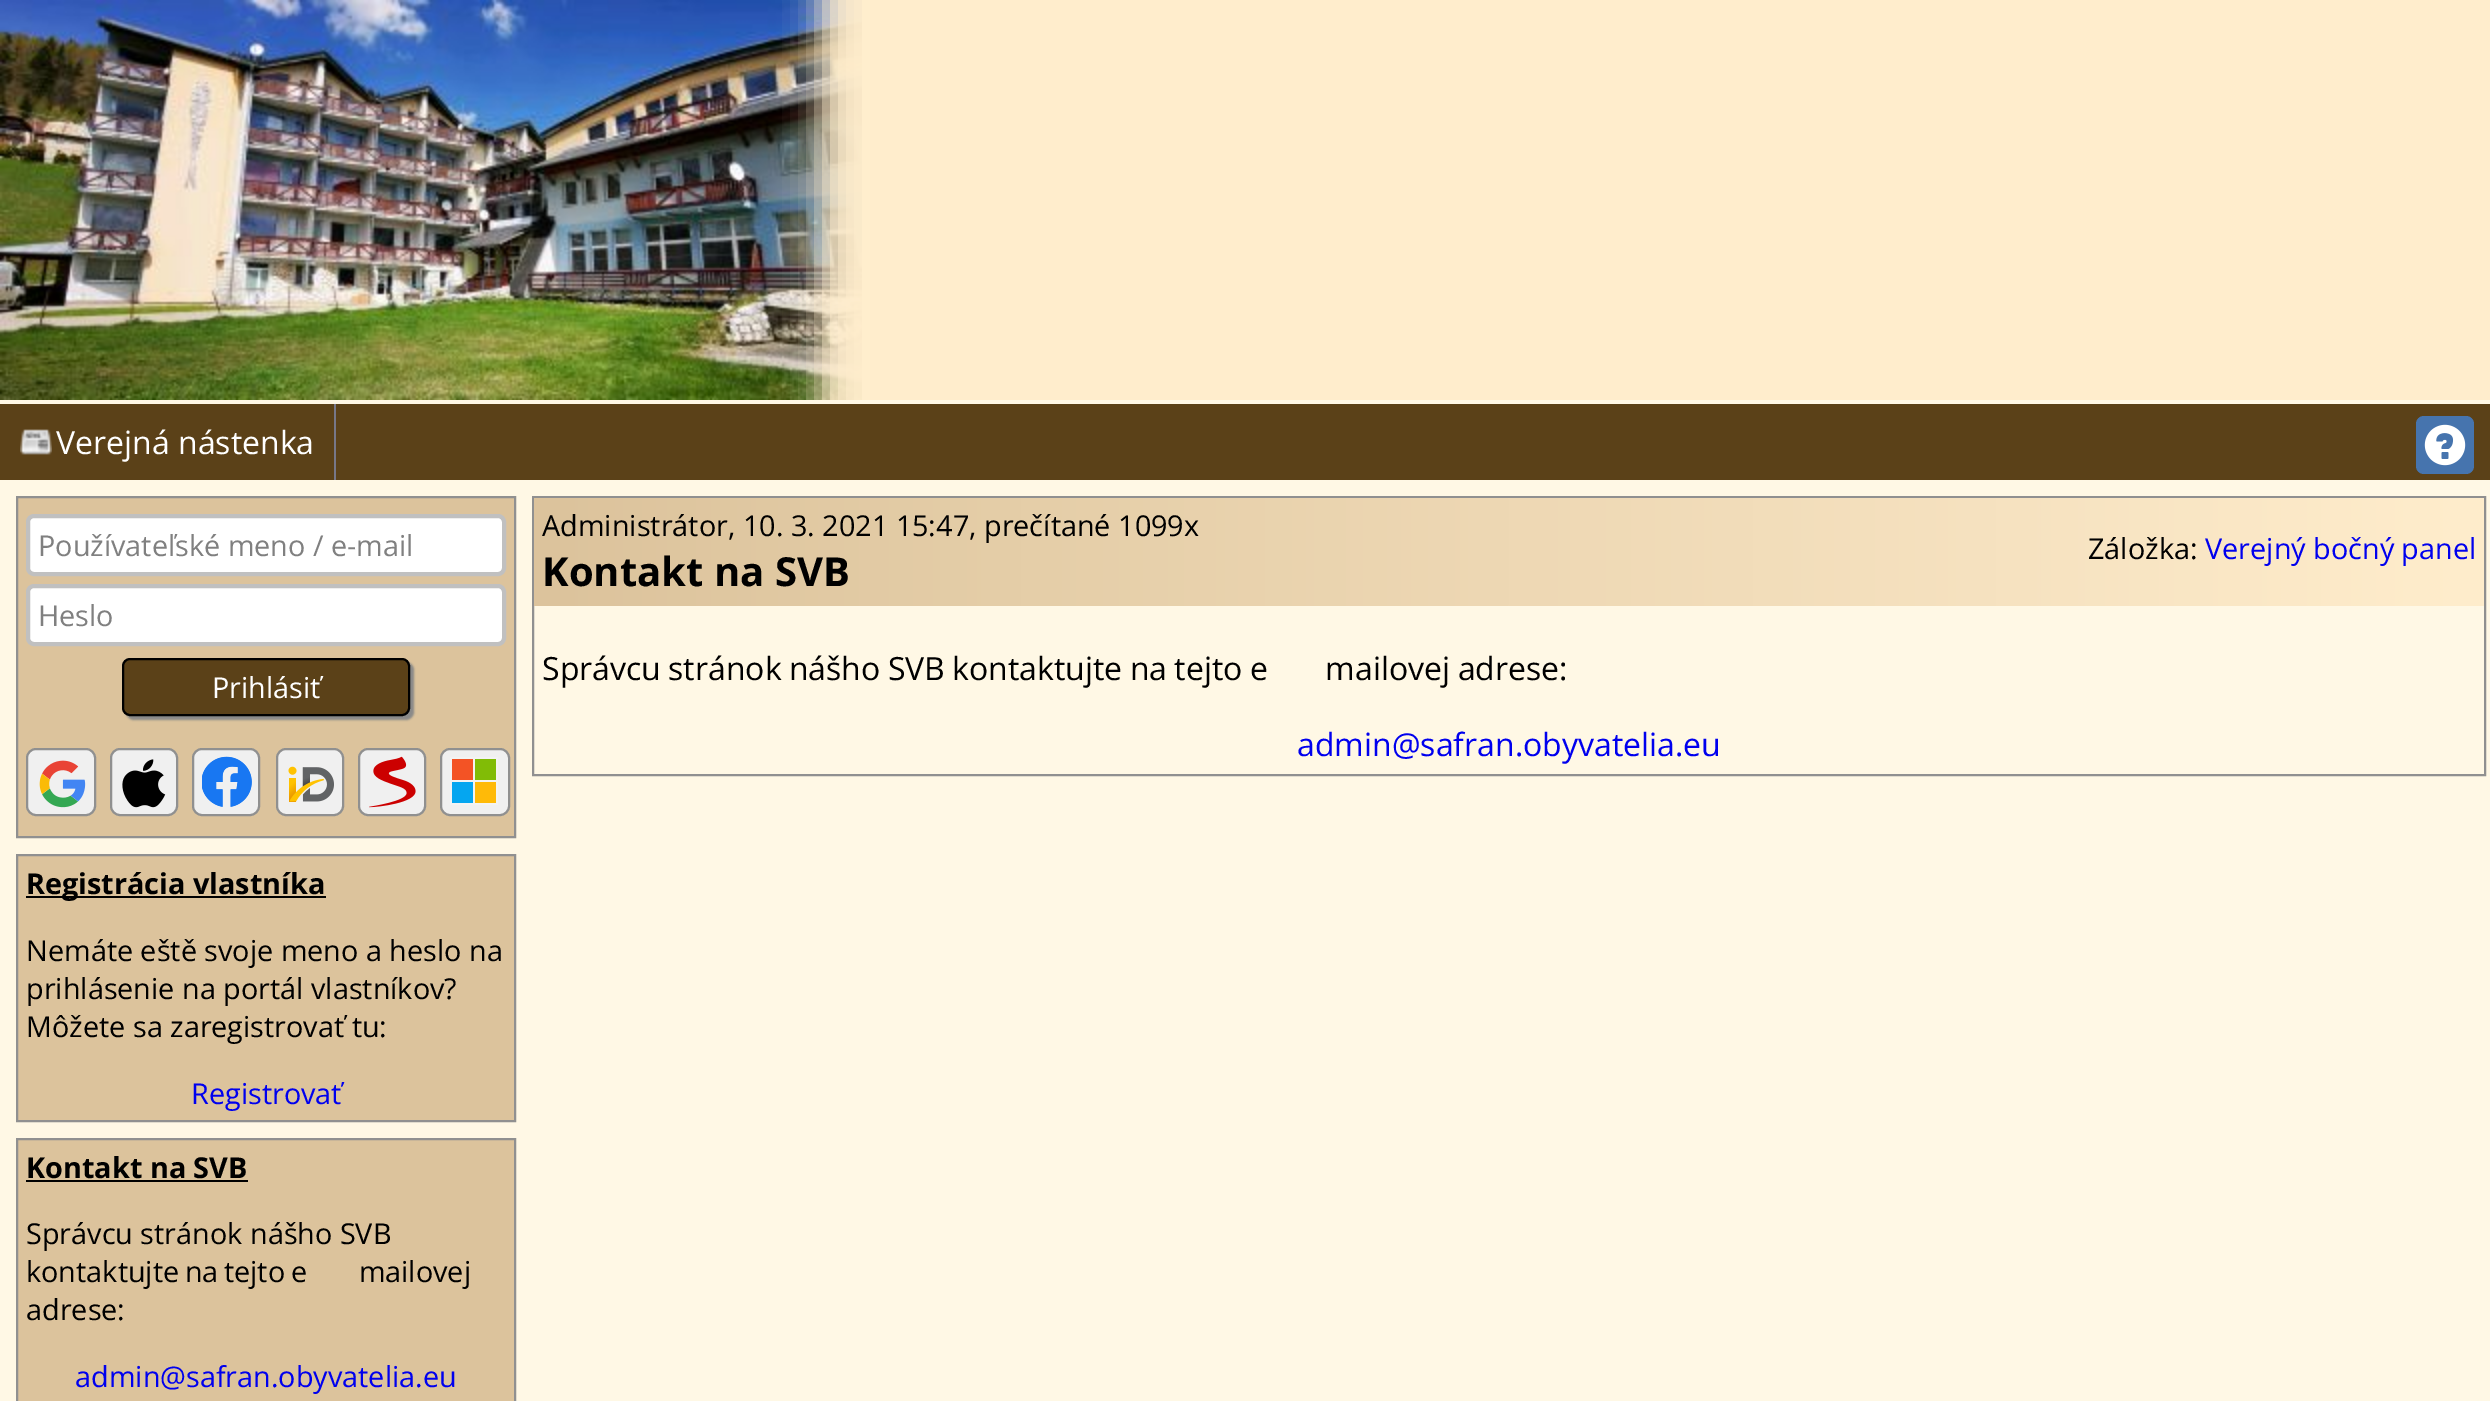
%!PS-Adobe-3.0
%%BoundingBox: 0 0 2490 1401
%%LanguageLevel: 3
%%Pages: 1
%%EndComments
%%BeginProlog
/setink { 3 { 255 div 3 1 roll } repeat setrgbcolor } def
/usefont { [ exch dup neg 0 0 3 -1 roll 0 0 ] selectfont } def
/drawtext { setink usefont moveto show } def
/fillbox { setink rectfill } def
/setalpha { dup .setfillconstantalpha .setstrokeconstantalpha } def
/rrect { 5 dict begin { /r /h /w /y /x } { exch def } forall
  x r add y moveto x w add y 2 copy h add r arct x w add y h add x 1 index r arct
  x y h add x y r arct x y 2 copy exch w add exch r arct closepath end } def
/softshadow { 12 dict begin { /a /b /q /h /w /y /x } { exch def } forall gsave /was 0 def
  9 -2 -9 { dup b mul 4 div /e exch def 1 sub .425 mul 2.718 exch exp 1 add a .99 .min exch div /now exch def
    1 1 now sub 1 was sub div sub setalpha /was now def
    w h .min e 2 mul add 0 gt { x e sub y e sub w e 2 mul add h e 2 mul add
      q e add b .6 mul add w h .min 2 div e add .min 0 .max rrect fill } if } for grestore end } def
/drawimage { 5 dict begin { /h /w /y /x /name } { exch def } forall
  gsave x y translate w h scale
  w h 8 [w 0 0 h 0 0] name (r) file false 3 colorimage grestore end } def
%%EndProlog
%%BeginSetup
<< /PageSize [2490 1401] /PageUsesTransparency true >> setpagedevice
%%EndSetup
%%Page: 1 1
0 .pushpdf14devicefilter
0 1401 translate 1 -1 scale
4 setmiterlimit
0 0 2490 1401 255 248 229 fillbox
870 0 1620 400 255 237 204 fillbox
(assets/img1.rgb) 0 0 862 400 drawimage
0 404 2490 76 91 65 24 fillbox
144 144 144 setink
2 setlinewidth
533 497 1952 278 rectstroke
gsave
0 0 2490 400 rectclip
255 237 204 setink
818 -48 96 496 0 16 1 softshadow
grestore
334 404 2 76 119 119 136 fillbox
(assets/img2.rgb) 20 429 32 26 drawimage
(Verejná nástenka) 56 454 /OpenSans-Regular 32 255 255 255 drawtext
70 116 174 setink
2416 416 58 58 8 rrect fill
(assets/img3.rgb) 2424 424 42 42 drawimage
220 195 156 setink
17 497 moveto 515 497 lineto 515 837 lineto 17 837 lineto closepath gsave fill grestore
144 144 144 setink
stroke
255 255 255 setink
28 516 476 58 6 rrect gsave fill grestore
192 192 192 setink
4 setlinewidth
stroke
(Používateľské meno / e-mail) 38 556 /OpenSans-Regular 28.8 128 128 128 drawtext
255 255 255 setink
28 586 476 58 6 rrect gsave fill grestore
192 192 192 setink
stroke
(Heslo) 38 626 /OpenSans-Regular 28.8 128 128 128 drawtext
136 136 136 setink
126 662 288 58 8 1 1 softshadow
91 65 24 setink
123 659 286 56 7 rrect gsave fill grestore
0 0 0 setink
2 setlinewidth
stroke
(Prihlásiť) 212 698 /OpenSans-Regular 28.8 255 255 255 drawtext
240 240 240 setink
27 749 68 66 9 rrect gsave fill grestore
144 144 144 setink
stroke
(assets/img4.rgb) 39 760 47 48 drawimage
240 240 240 setink
111 749 66 66 9 rrect gsave fill grestore
144 144 144 setink
stroke
(assets/img5.rgb) 122 759 44 49 drawimage
240 240 240 setink
193 749 66 66 9 rrect gsave fill grestore
144 144 144 setink
stroke
(assets/img6.rgb) 202 756 50 51 drawimage
240 240 240 setink
277 749 66 66 9 rrect gsave fill grestore
144 144 144 setink
stroke
(assets/img7.rgb) 288 766 46 36 drawimage
240 240 240 setink
359 749 66 66 9 rrect gsave fill grestore
144 144 144 setink
stroke
(assets/img8.rgb) 369 756 47 52 drawimage
240 240 240 setink
441 749 68 66 9 rrect gsave fill grestore
144 144 144 setink
stroke
450 757 48 48 243 243 243 fillbox
452 759 21 21 243 83 37 fillbox
475 759 21 21 129 188 6 fillbox
452 782 21 21 5 166 240 fillbox
475 782 21 21 255 186 8 fillbox
220 195 156 setink
17 855 moveto 515 855 lineto 515 1121 lineto 17 1121 lineto closepath gsave fill grestore
144 144 144 setink
stroke
26 896 300 2 0 0 0 fillbox
(Registrácia vlastníka) 26 894 /OpenSans-Bold 28.8 0 0 0 drawtext
(Nemáte eště svoje meno a heslo na) 26 961 /OpenSans-Regular 28.8 0 0 0 drawtext
(prihlásenie na portál vlastníkov?) 26 999 /OpenSans-Regular 28.8 0 0 0 drawtext
(Môžete sa zaregistrovať tu:) 26 1037 /OpenSans-Regular 28.8 0 0 0 drawtext
(Registrovať) 191 1104 /OpenSans-Regular 28.8 0 0 238 drawtext
220 195 156 setink
17 1139 moveto 515 1139 lineto 515 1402 lineto 17 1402 lineto closepath gsave fill grestore
144 144 144 setink
stroke
(Kontakt na SVB) 26 1178 /OpenSans-Bold 28.8 0 0 0 drawtext
26 1180 222 2 0 0 0 fillbox
(Správcu stránok nášho SVB) 26 1244 /OpenSans-Regular 28.8 0 0 0 drawtext
26 1282 moveto -2 0 32 (kontaktujte na tejto e‑mailovej) widthshow
(adrese:) 26 1320 /OpenSans-Regular 28.8 0 0 0 drawtext
(admin@safran.obyvatelia.eu) 75 1387 /OpenSans-Regular 28.8 0 0 238 drawtext
gsave 534 498 moveto 2484 498 lineto 2484 606 lineto 534 606 lineto closepath clip newpath
<< /ShadingType 2 /ColorSpace /DeviceRGB /Coords [534 552 2484 552] /Extend [true true] /Function << /FunctionType 2 /Domain [0 1] /C0 [0.863 0.765 0.612] /C1 [1 0.929 0.8] /N 1 >> >> shfill grestore
(Administrátor, 10. 3. 2021 15:47, prečítané 1099x) 542 536 /OpenSans-Regular 28.8 0 0 0 drawtext
(Kontakt na SVB) 542 586 /OpenSans-Bold 40 0 0 0 drawtext
(Záložka:) 2088 559 /OpenSans-Regular 28.8 0 0 0 drawtext
(Verejný bočný panel) 2205 559 /OpenSans-Regular 28.8 0 0 238 drawtext
/OpenSans-Regular 32 usefont
0 0 0 setink
542 680 moveto -1 0 32 (Správcu stránok nášho SVB kontaktujte na tejto e‑mailovej adrese:) widthshow
(admin@safran.obyvatelia.eu) 1297 756 /OpenSans-Regular 32 0 0 238 drawtext
.poppdf14devicefilter showpage
%%EOF
